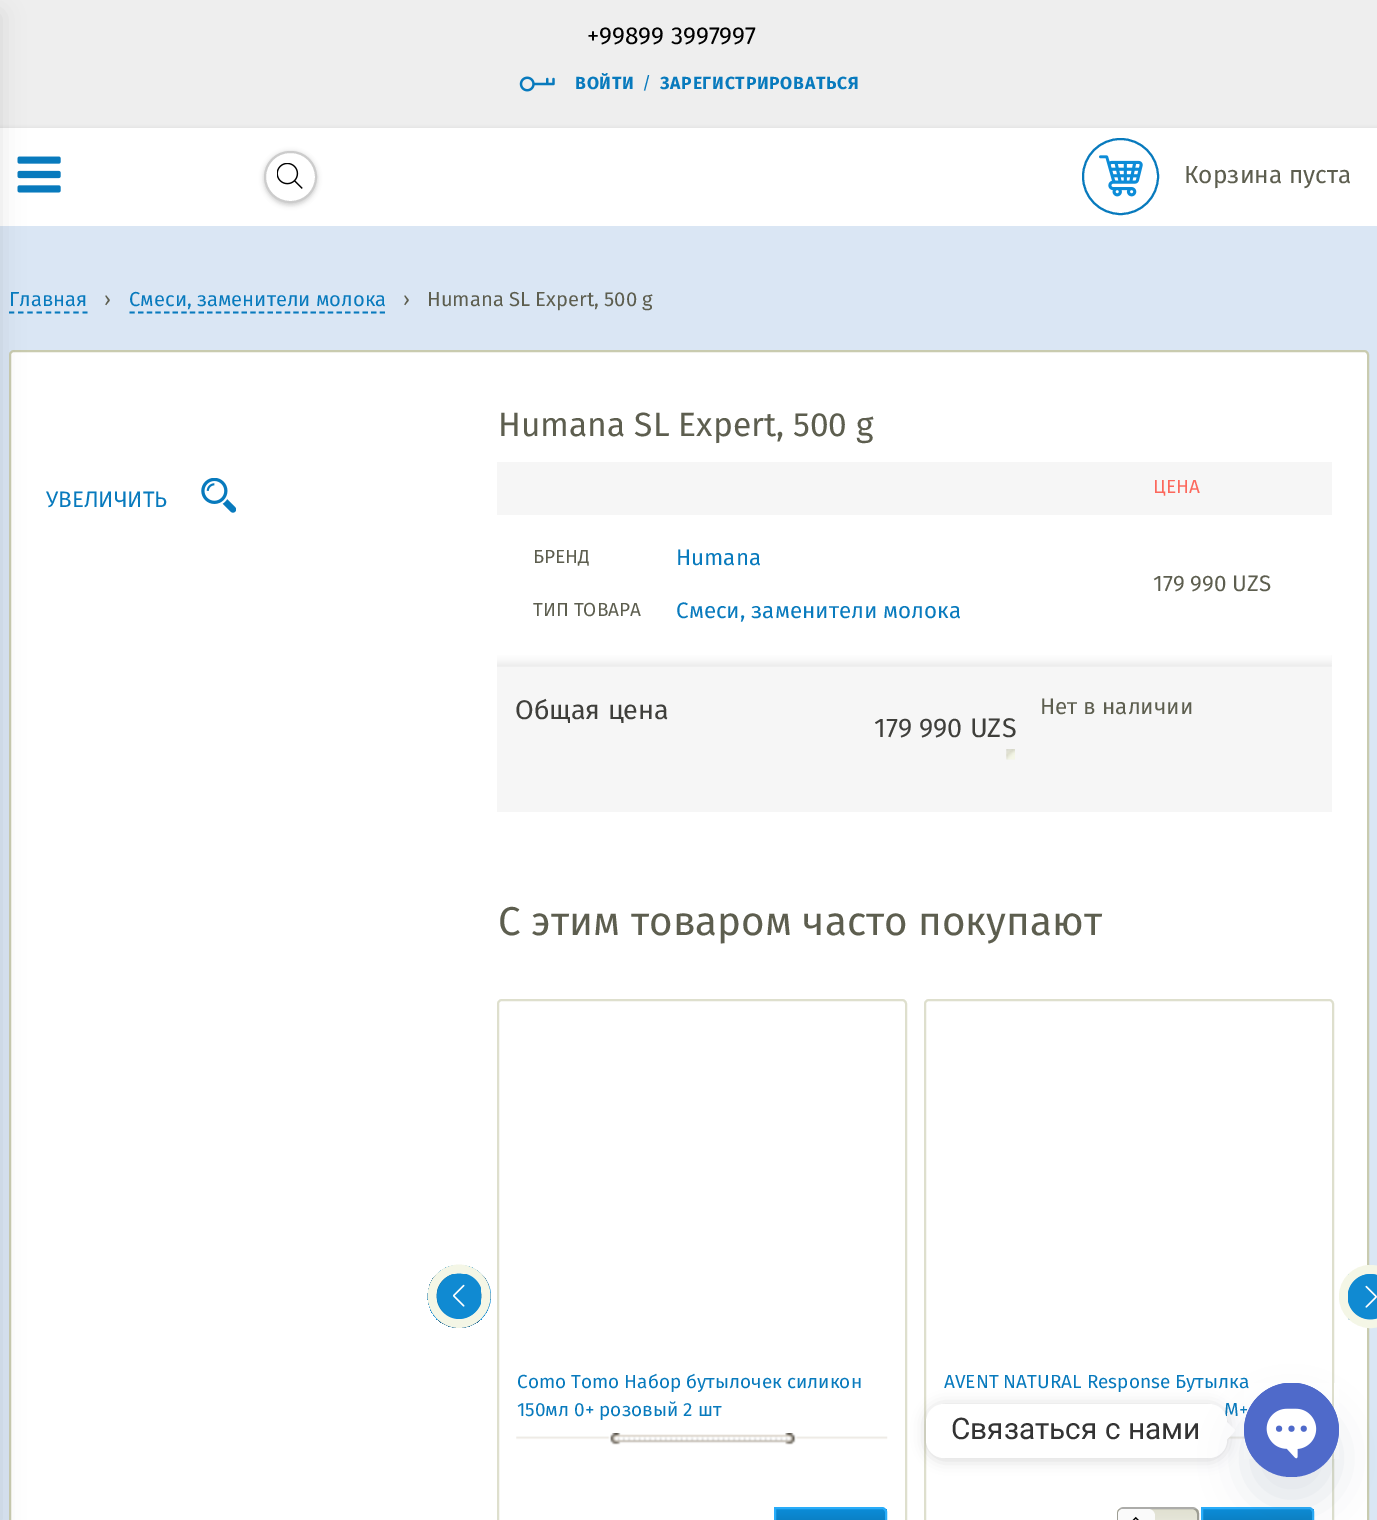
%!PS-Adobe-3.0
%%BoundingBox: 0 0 1377 1520
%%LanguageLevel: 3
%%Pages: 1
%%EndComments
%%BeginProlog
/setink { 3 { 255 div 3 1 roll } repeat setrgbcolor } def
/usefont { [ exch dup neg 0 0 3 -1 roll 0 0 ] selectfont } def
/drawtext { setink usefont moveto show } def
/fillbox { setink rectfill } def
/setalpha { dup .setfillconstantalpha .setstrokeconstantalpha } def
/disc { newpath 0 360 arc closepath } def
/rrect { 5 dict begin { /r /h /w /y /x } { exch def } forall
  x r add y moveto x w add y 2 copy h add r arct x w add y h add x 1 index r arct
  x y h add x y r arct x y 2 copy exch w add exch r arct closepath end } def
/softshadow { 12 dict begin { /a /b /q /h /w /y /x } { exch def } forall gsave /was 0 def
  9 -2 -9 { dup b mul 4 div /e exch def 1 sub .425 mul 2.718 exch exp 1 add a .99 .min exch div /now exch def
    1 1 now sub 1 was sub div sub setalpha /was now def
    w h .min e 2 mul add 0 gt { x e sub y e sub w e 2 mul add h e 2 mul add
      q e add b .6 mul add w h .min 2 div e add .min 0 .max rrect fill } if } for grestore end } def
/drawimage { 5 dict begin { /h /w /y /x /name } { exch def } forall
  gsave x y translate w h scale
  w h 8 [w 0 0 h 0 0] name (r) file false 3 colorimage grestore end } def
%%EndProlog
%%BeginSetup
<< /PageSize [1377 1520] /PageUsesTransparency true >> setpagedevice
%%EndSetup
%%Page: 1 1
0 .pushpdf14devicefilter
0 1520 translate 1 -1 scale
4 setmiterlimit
0 0 1377 1520 238 238 238 fillbox
0 0 0 setink
0 130 1377 98 0 2.5 0.2 softshadow
0 128 1377 98 255 255 255 fillbox
(assets/img2.rgb) 17 156 44 37 drawimage
0 226 1377 1294 218 230 244 fillbox
8 122 189 setink
1.8 setlinewidth
[5.25 3.94] 0 setdash
9 312.5 moveto 87.5 312.5 lineto stroke
255 255 255 setink
10 351 1358 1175 4 rrect gsave fill grestore
201 203 175 setink
2 setlinewidth
[] 0 setdash
stroke
0 0 0 setink
-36 14 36 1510 0 12 0.11 softshadow
(+99899 3997997) 587 44 /FiraSans-Regular 24.5 0 0 0 drawtext
(assets/img1.rgb) 519 76 36 16 drawimage
/FiraSans-Bold 17.5 usefont
8 122 189 setink
575 89 moveto 0.75 0 (ВОЙТИ) ashow
(/) 642 89 /FiraSans-Regular 17.5 8 122 189 drawtext
/FiraSans-Bold 17.5 usefont
660 89 moveto 0.75 0 (ЗАРЕГИСТРИРОВАТЬСЯ) ashow
0 0 0 setink
264 152 53 53 26.5 2.5 0.2 softshadow
255 255 255 setink
265 152 51 50 25 rrect gsave fill grestore
204 204 204 setink
stroke
(assets/img3.rgb) 277 163 26 26 drawimage
8 122 189 setink
1120.5 176.5 37.5 disc stroke
(assets/img4.rgb) 1099 155 44 42 drawimage
(Корзина пуста) 1184 183 /FiraSans-Regular 24.5 93 94 79 drawtext
(Главная) 9 306 /FiraSans-Regular 20.2 8 122 189 drawtext
(›) 104 306 /FiraSans-Regular 20.2 93 94 79 drawtext
(Смеси, заменители молока) 129 306 /FiraSans-Regular 20.2 8 122 189 drawtext
1.8 setlinewidth
[5.25 3.38] 0 setdash
129.5 312.5 moveto 385 312.5 lineto stroke
(›) 403 306 /FiraSans-Regular 20.2 93 94 79 drawtext
(Humana SL Expert, 500 g) 427 306 /FiraSans-Regular 20.2 93 94 79 drawtext
(УВЕЛИЧИТЬ) 46 507 /FiraSans-Regular 22.4 8 122 189 drawtext
(assets/img5.rgb) 201 478 35 35 drawimage
(Humana SL Expert, 500 g) 498 436 /FiraSans-Regular 33.6 93 94 79 drawtext
497 462 835 53 246 246 246 fillbox
(ЦЕНА) 1153 493 /FiraSans-Regular 19 252 104 92 drawtext
(БРЕНД) 533 563 /FiraSans-Regular 19 93 94 79 drawtext
(Humana) 676 565 /FiraSans-Regular 22.4 8 122 189 drawtext
(ТИП ТОВАРА) 533 616 /FiraSans-Regular 19 93 94 79 drawtext
(Смеси, заменители молока) 676 618 /FiraSans-Regular 22.4 8 122 189 drawtext
(179 990 UZS) 1153 591 /FiraSans-Regular 22.4 93 94 79 drawtext
497 655 835 157 246 246 246 fillbox
(assets/img6.rgb) 497 655 835 12 drawimage
(Общая цена) 515 719 /FiraSans-Regular 27 63 63 59 drawtext
(assets/img7.rgb) 1006 749 9 11 drawimage
(179 990 UZS) 874 737 /FiraSans-Regular 27 63 63 59 drawtext
(Нет в наличии) 1040 714 /FiraSans-Regular 22.4 93 94 79 drawtext
(С этим товаром часто покупают) 498 935 /FiraSans-Regular 40.3 93 94 79 drawtext
12 140 216 setink
459 1328 moveto 442 1328 428 1314 428 1296 curveto 428 1279 442 1265 459 1265 curveto 476 1265 491 1279 491 1296 curveto 491 1314 476 1328 459 1328 curveto closepath fill
gsave 459 1328 moveto 467 1328 474 1325 480 1320 curveto 438 1320 lineto 444 1325 451 1328 459 1328 curveto closepath clip newpath
<< /ShadingType 2 /ColorSpace /DeviceRGB /Coords [459 1364 459 1319] /Extend [true true] /Function << /FunctionType 2 /Domain [0 1] /C0 [0.047 0.549 0.847] /C1 [0.035 0.333 0.51] /N 1 >> >> shfill grestore
gsave 480 1320 moveto 438 1320 lineto 425 1308 424 1287 437 1274 curveto 481 1274 lineto 494 1287 493 1308 480 1320 curveto closepath clip newpath
<< /ShadingType 2 /ColorSpace /DeviceRGB /Coords [459 1319 459 1273] /Extend [true true] /Function << /FunctionType 2 /Domain [0 1] /C0 [0.047 0.549 0.847] /C1 [0.035 0.333 0.51] /N 1 >> >> shfill grestore
gsave 481 1274 moveto 437 1274 lineto 449 1262 469 1262 481 1274 curveto closepath clip newpath
<< /ShadingType 2 /ColorSpace /DeviceRGB /Coords [459 1273 459 1228] /Extend [true true] /Function << /FunctionType 2 /Domain [0 1] /C0 [0.047 0.549 0.847] /C1 [0.035 0.333 0.51] /N 1 >> >> shfill grestore
244 246 230 setink
8.8 setlinewidth
[] 0 setdash
459 1323.5 moveto 444 1323.5 432 1311 432 1296 curveto 432 1281 444 1269 459 1269 curveto 474 1269 486 1281 486 1296 curveto 486 1311 474 1323.5 459 1323.5 curveto closepath stroke
(assets/img8.rgb) 437 1274 44 45 drawimage
9 setlinewidth
1370.5 1296.5 27 disc stroke
(assets/img9.rgb) 1348 1274 29 46 drawimage
222 223 205 setink
2 setlinewidth
498 1000 408 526 4 rrect stroke
(Como Tomo Набор бутылочек силикон) 517 1388 /FiraSans-Regular 19 8 122 189 drawtext
(150мл 0+ розовый 2 шт) 517 1416 /FiraSans-Regular 19 8 122 189 drawtext
(assets/img10.rgb) 516 1433 372 12 drawimage
gsave 776 1509 moveto 887 1509 lineto 887 1520 lineto 776 1520 lineto closepath clip newpath
<< /ShadingType 2 /ColorSpace /DeviceRGB /Coords [830 1509 830 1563] /Extend [true true] /Function << /FunctionType 2 /Domain [0 1] /C0 [0.047 0.549 0.847] /C1 [0.035 0.333 0.51] /N 1 >> >> shfill grestore
40 172 249 setink
775 1508 moveto 882 1508 lineto 884 1508 886 1510 886 1512 curveto 886 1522 lineto 886 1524 884 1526 882 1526 curveto 775 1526 lineto closepath stroke
222 223 205 setink
925 1000 408 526 4 rrect stroke
(AVENT NATURAL Response Бутылка) 944 1388 /FiraSans-Regular 19 8 122 189 drawtext
(М+) 1224 1416 /FiraSans-Regular 19 8 122 189 drawtext
(assets/img11.rgb) 1227 1436 19 4 drawimage
gsave
1117 1507 82 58 7 rrect clip newpath
gsave 1117 1507 moveto 1199 1507 lineto 1199 1509 lineto 1117 1509 lineto closepath clip newpath
<< /ShadingType 2 /ColorSpace /DeviceRGB /Coords [1158 1454 1158 1509] /Extend [true true] /Function << /FunctionType 2 /Domain [0 1] /C0 [0.878 0.878 0.82] /C1 [0.969 0.969 0.953] /N 1 >> >> shfill grestore
gsave 1117 1509 moveto 1199 1509 lineto 1199 1520 lineto 1117 1520 lineto closepath clip newpath
<< /ShadingType 2 /ColorSpace /DeviceRGB /Coords [1158 1509 1158 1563] /Extend [true true] /Function << /FunctionType 2 /Domain [0 1] /C0 [0.878 0.878 0.82] /C1 [0.969 0.969 0.953] /N 1 >> >> shfill grestore
grestore
0.3 setalpha
0 0 0 setink
1118 1508 80 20 6 rrect stroke
1 setalpha
250 250 250 setink
1123 1509 moveto 1148 1509 lineto 1152 1509 1155 1512 1155 1516 curveto 1155 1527 lineto 1118 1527 lineto 1118 1514 lineto 1118 1511 1120 1509 1123 1509 curveto closepath fill
(assets/img12.rgb) 1132 1516 7 4 drawimage
gsave 1203 1509 moveto 1314 1509 lineto 1314 1520 lineto 1203 1520 lineto closepath clip newpath
<< /ShadingType 2 /ColorSpace /DeviceRGB /Coords [1257 1509 1257 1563] /Extend [true true] /Function << /FunctionType 2 /Domain [0 1] /C0 [0.047 0.549 0.847] /C1 [0.035 0.333 0.51] /N 1 >> >> shfill grestore
40 172 249 setink
1202 1508 moveto 1309 1508 lineto 1311 1508 1313 1510 1313 1512 curveto 1313 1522 lineto 1313 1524 1311 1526 1309 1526 curveto 1202 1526 lineto closepath stroke
gsave
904 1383 moveto 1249 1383 lineto 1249 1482 lineto 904 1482 lineto closepath 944 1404 moveto 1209 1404 lineto 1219 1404 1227 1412 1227 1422 curveto 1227 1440 lineto 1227 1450 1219 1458 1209 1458 curveto 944 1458 lineto 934 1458 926 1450 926 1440 curveto 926 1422 lineto 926 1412 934 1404 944 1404 curveto closepath eoclip newpath
0 0 0 setink
926 1405 301 55 18 7 0.15 softshadow
grestore
255 255 255 setink
926 1404 301 54 18 rrect fill
(Связаться с нами) 951 1439 /Roboto-Regular 29.75 51 51 51 drawtext
255 255 255 setink
1227 1439.5 moveto 1227 1422 lineto 1235.5 1430.5 lineto closepath fill
73 104 126 setink
1244 1411 95 94 47 21 0.16 softshadow
79 106 202 setink
1244 1383 95 94 47 rrect fill
(assets/img13.rgb) 1244 1383 95 76 drawimage
.poppdf14devicefilter showpage
%%EOF
